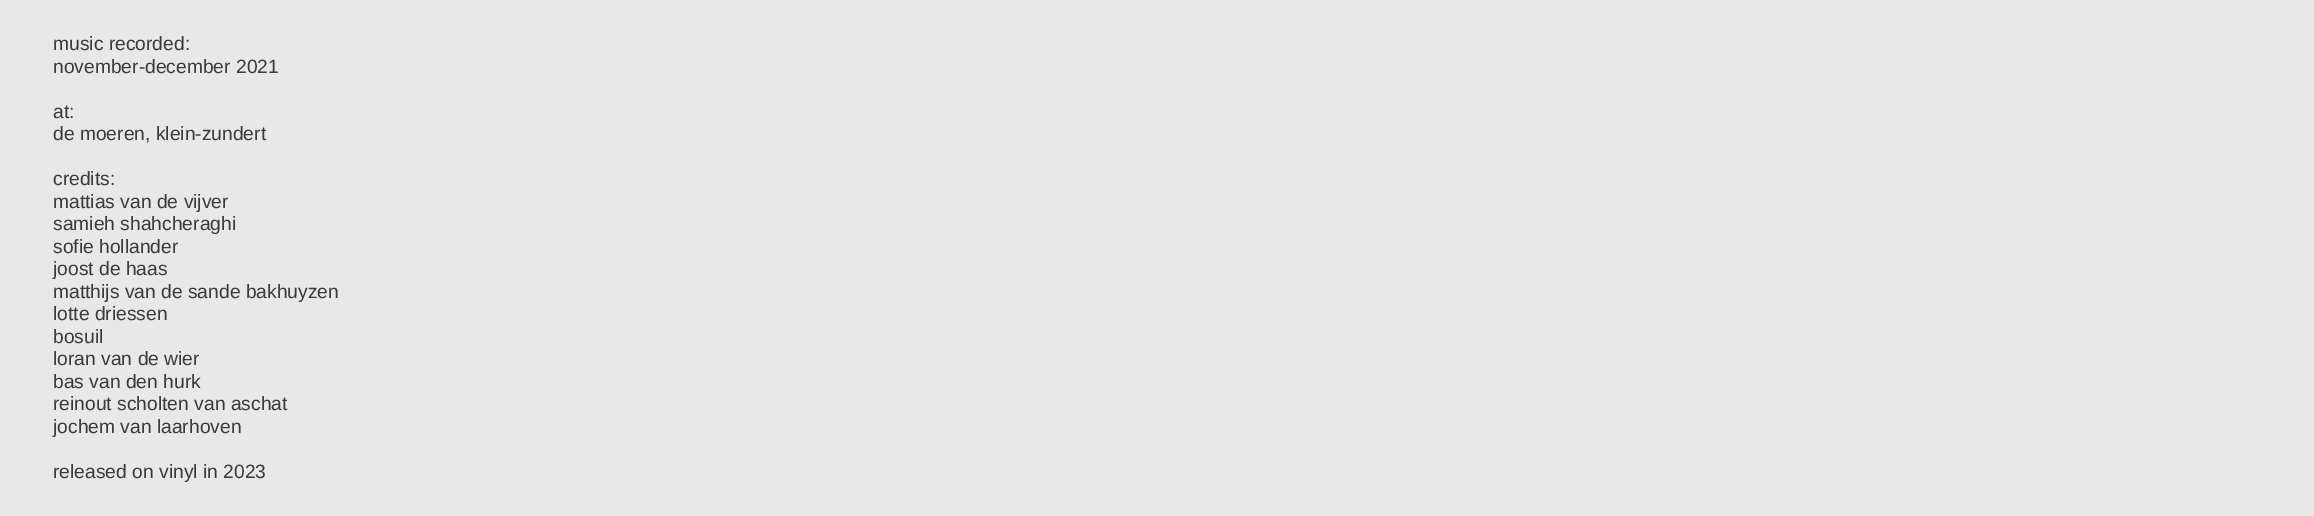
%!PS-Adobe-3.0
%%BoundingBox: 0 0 2314 516
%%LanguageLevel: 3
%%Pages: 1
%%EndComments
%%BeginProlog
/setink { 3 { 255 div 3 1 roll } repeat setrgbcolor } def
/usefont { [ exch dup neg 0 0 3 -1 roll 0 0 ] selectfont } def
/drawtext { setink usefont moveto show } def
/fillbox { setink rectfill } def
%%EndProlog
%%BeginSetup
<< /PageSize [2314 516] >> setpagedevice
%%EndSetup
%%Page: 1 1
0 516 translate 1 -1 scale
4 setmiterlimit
0 0 2314 516 232 232 232 fillbox
(music recorded:) 53 50 /LiberationSans-Regular 19.25 59 59 59 drawtext
(november-december 2021) 53 73 /LiberationSans-Regular 19.25 59 59 59 drawtext
(at:) 53 118 /LiberationSans-Regular 19.25 59 59 59 drawtext
(de moeren, klein-zundert) 53 140 /LiberationSans-Regular 19.25 59 59 59 drawtext
(credits:) 53 185 /LiberationSans-Regular 19.25 59 59 59 drawtext
(mattias van de vijver) 53 208 /LiberationSans-Regular 19.25 59 59 59 drawtext
(samieh shahcheraghi) 53 230 /LiberationSans-Regular 19.25 59 59 59 drawtext
(sofie hollander) 53 253 /LiberationSans-Regular 19.25 59 59 59 drawtext
(joost de haas) 53 275 /LiberationSans-Regular 19.25 59 59 59 drawtext
(matthijs van de sande bakhuyzen) 53 298 /LiberationSans-Regular 19.25 59 59 59 drawtext
(lotte driessen) 53 320 /LiberationSans-Regular 19.25 59 59 59 drawtext
(bosuil) 53 343 /LiberationSans-Regular 19.25 59 59 59 drawtext
(loran van de wier) 53 365 /LiberationSans-Regular 19.25 59 59 59 drawtext
(bas van den hurk) 53 388 /LiberationSans-Regular 19.25 59 59 59 drawtext
(reinout scholten van aschat) 53 410 /LiberationSans-Regular 19.25 59 59 59 drawtext
(jochem van laarhoven) 53 433 /LiberationSans-Regular 19.25 59 59 59 drawtext
(released on vinyl in 2023) 53 478 /LiberationSans-Regular 19.25 59 59 59 drawtext
showpage
%%EOF
